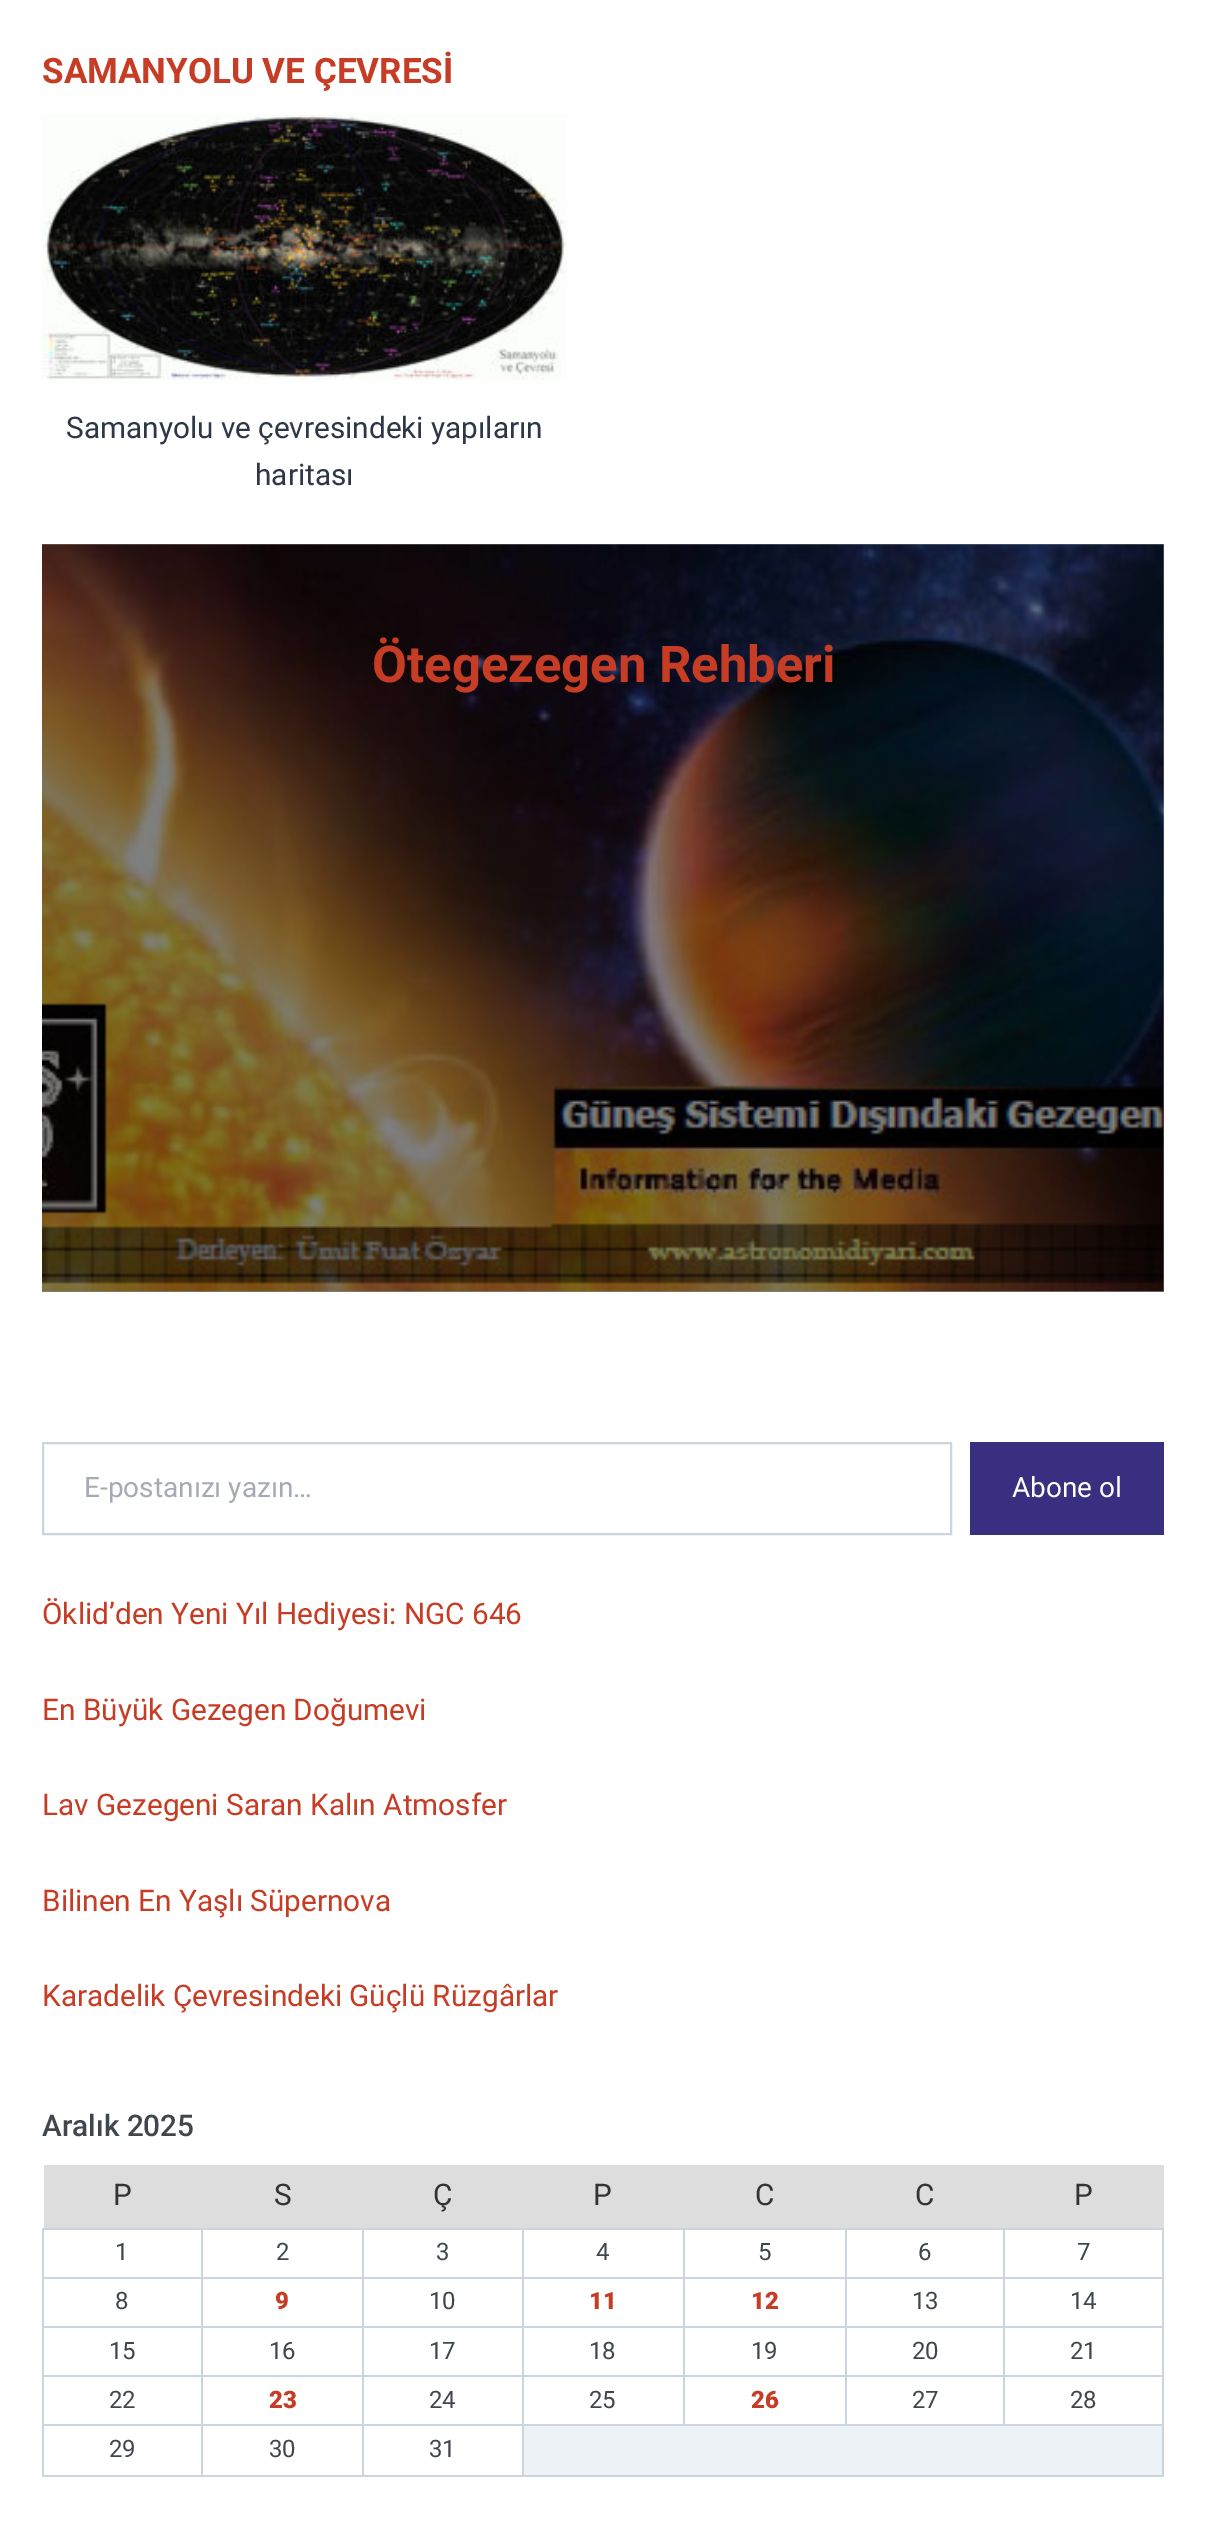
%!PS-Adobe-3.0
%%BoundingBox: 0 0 1205 2521
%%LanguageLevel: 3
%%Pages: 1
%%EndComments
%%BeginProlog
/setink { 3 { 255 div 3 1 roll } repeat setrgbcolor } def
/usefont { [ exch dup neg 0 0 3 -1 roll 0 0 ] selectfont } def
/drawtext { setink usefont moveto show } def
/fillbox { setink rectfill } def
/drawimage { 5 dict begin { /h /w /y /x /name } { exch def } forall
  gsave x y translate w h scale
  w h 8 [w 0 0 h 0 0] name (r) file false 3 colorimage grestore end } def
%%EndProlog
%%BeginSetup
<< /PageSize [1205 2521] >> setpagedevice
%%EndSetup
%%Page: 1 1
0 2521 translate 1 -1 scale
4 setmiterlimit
0 0 1205 2521 255 255 255 fillbox
42 544 1122 748 128 128 128 fillbox
(SAMANYOLU VE ÇEVRESİ) 42 83 /Roboto-Bold 35 198 60 36 drawtext
(assets/img1.rgb) 42 114 525 266 drawimage
(Samanyolu ve çevresindeki yapıların) 66 438 /Roboto-Regular 29.75 45 55 72 drawtext
(haritası) 255 485 /Roboto-Regular 29.75 45 55 72 drawtext
(assets/img2.rgb) 42 544 1122 748 drawimage
(Ötegezegen Rehberi) 372 682 /Roboto-Bold 50.75 198 60 36 drawtext
203 213 224 setink
2 setlinewidth
43 1443 908 91 rectstroke
(E-postanızı yazın…) 84 1497 /Roboto-Regular 28 165 170 180 drawtext
970 1442 194 93 57 47 128 fillbox
(Abone ol) 1012 1497 /Roboto-Regular 28 255 255 255 drawtext
(Öklid’den Yeni Yıl Hediyesi: NGC 646) 42 1624 /Roboto-Regular 29.75 198 60 36 drawtext
(En Büyük Gezegen Doğumevi) 42 1720 /Roboto-Regular 29.75 198 60 36 drawtext
(Lav Gezegeni Saran Kalın Atmosfer) 42 1815 /Roboto-Regular 29.75 198 60 36 drawtext
(Bilinen En Yaşlı Süpernova) 42 1911 /Roboto-Regular 29.75 198 60 36 drawtext
(Karadelik Çevresindeki Güçlü Rüzgârlar) 42 2006 /Roboto-Regular 29.75 198 60 36 drawtext
(Aralık 2025) 42 2136 /Roboto-Medium 29.75 64 70 77 drawtext
44 2165 1120 63 221 221 221 fillbox
(P) 113 2205 /Roboto-Regular 29.75 51 51 51 drawtext
(S) 274 2205 /Roboto-Regular 29.75 51 51 51 drawtext
(Ç) 433 2205 /Roboto-Regular 29.75 51 51 51 drawtext
(P) 593 2205 /Roboto-Regular 29.75 51 51 51 drawtext
(C) 755 2205 /Roboto-Regular 29.75 51 51 51 drawtext
(C) 915 2205 /Roboto-Regular 29.75 51 51 51 drawtext
(P) 1074 2205 /Roboto-Regular 29.75 51 51 51 drawtext
1003 2228 161 2 203 213 224 fillbox
1003 2277 161 2 203 213 224 fillbox
1003 2326 161 2 203 213 224 fillbox
1003 2375 161 2 203 213 224 fillbox
522 2424 642 2 203 213 224 fillbox
1003 2375 2 51 203 213 224 fillbox
845 2375 160 2 203 213 224 fillbox
1003 2326 2 51 203 213 224 fillbox
845 2326 160 2 203 213 224 fillbox
1003 2277 2 51 203 213 224 fillbox
845 2277 160 2 203 213 224 fillbox
1003 2228 2 51 203 213 224 fillbox
845 2228 160 2 203 213 224 fillbox
845 2375 2 51 203 213 224 fillbox
683 2375 164 2 203 213 224 fillbox
845 2326 2 51 203 213 224 fillbox
683 2326 164 2 203 213 224 fillbox
845 2277 2 51 203 213 224 fillbox
683 2277 164 2 203 213 224 fillbox
845 2228 2 51 203 213 224 fillbox
683 2228 164 2 203 213 224 fillbox
683 2375 2 51 203 213 224 fillbox
522 2375 162 2 203 213 224 fillbox
683 2326 2 51 203 213 224 fillbox
522 2326 162 2 203 213 224 fillbox
683 2277 2 51 203 213 224 fillbox
522 2277 162 2 203 213 224 fillbox
683 2228 2 51 203 213 224 fillbox
522 2228 162 2 203 213 224 fillbox
1162 2424 2 52 203 213 224 fillbox
522 2475 642 2 203 213 224 fillbox
522 2424 2 52 203 213 224 fillbox
362 2424 161 2 203 213 224 fillbox
522 2375 2 51 203 213 224 fillbox
362 2375 161 2 203 213 224 fillbox
522 2326 2 51 203 213 224 fillbox
362 2326 161 2 203 213 224 fillbox
522 2277 2 51 203 213 224 fillbox
362 2277 161 2 203 213 224 fillbox
522 2228 2 51 203 213 224 fillbox
362 2228 161 2 203 213 224 fillbox
362 2475 161 2 203 213 224 fillbox
362 2424 2 52 203 213 224 fillbox
201 2424 163 2 203 213 224 fillbox
362 2375 2 51 203 213 224 fillbox
201 2375 163 2 203 213 224 fillbox
362 2326 2 51 203 213 224 fillbox
201 2326 163 2 203 213 224 fillbox
362 2277 2 51 203 213 224 fillbox
201 2277 163 2 203 213 224 fillbox
362 2228 2 51 203 213 224 fillbox
201 2228 163 2 203 213 224 fillbox
201 2475 163 2 203 213 224 fillbox
201 2424 2 52 203 213 224 fillbox
42 2424 161 2 203 213 224 fillbox
201 2375 2 51 203 213 224 fillbox
42 2375 161 2 203 213 224 fillbox
201 2326 2 51 203 213 224 fillbox
42 2326 161 2 203 213 224 fillbox
201 2277 2 51 203 213 224 fillbox
42 2277 161 2 203 213 224 fillbox
201 2228 2 51 203 213 224 fillbox
42 2228 161 2 203 213 224 fillbox
42 2475 161 2 203 213 224 fillbox
42 2424 2 52 203 213 224 fillbox
42 2375 2 51 203 213 224 fillbox
42 2326 2 51 203 213 224 fillbox
42 2277 2 51 203 213 224 fillbox
42 2228 2 51 203 213 224 fillbox
(1) 115 2260 /Roboto-Regular 24 64 70 77 drawtext
(2) 276 2260 /Roboto-Regular 24 64 70 77 drawtext
(3) 436 2260 /Roboto-Regular 24 64 70 77 drawtext
(4) 596 2260 /Roboto-Regular 24 64 70 77 drawtext
(5) 758 2260 /Roboto-Regular 24 64 70 77 drawtext
(6) 918 2260 /Roboto-Regular 24 64 70 77 drawtext
1162 2375 2 51 203 213 224 fillbox
1162 2326 2 51 203 213 224 fillbox
1162 2277 2 51 203 213 224 fillbox
1162 2228 2 51 203 213 224 fillbox
(7) 1077 2260 /Roboto-Regular 24 64 70 77 drawtext
(8) 115 2309 /Roboto-Regular 24 64 70 77 drawtext
(9) 275 2309 /Roboto-Black 24 198 60 36 drawtext
(10) 429 2309 /Roboto-Regular 24 64 70 77 drawtext
(11) 589 2309 /Roboto-Black 24 198 60 36 drawtext
(12) 751 2309 /Roboto-Black 24 198 60 36 drawtext
(13) 912 2309 /Roboto-Regular 24 64 70 77 drawtext
(14) 1070 2309 /Roboto-Regular 24 64 70 77 drawtext
(15) 109 2359 /Roboto-Regular 24 64 70 77 drawtext
(16) 269 2359 /Roboto-Regular 24 64 70 77 drawtext
(17) 429 2359 /Roboto-Regular 24 64 70 77 drawtext
(18) 589 2359 /Roboto-Regular 24 64 70 77 drawtext
(19) 751 2359 /Roboto-Regular 24 64 70 77 drawtext
(20) 912 2359 /Roboto-Regular 24 64 70 77 drawtext
(21) 1070 2359 /Roboto-Regular 24 64 70 77 drawtext
(22) 109 2408 /Roboto-Regular 24 64 70 77 drawtext
(23) 269 2408 /Roboto-Black 24 198 60 36 drawtext
(24) 429 2408 /Roboto-Regular 24 64 70 77 drawtext
(25) 589 2408 /Roboto-Regular 24 64 70 77 drawtext
(26) 751 2408 /Roboto-Black 24 198 60 36 drawtext
(27) 912 2408 /Roboto-Regular 24 64 70 77 drawtext
(28) 1070 2408 /Roboto-Regular 24 64 70 77 drawtext
(29) 109 2457 /Roboto-Regular 24 64 70 77 drawtext
(30) 269 2457 /Roboto-Regular 24 64 70 77 drawtext
(31) 429 2457 /Roboto-Regular 24 64 70 77 drawtext
524 2426 638 49 237 242 247 fillbox
showpage
%%EOF
